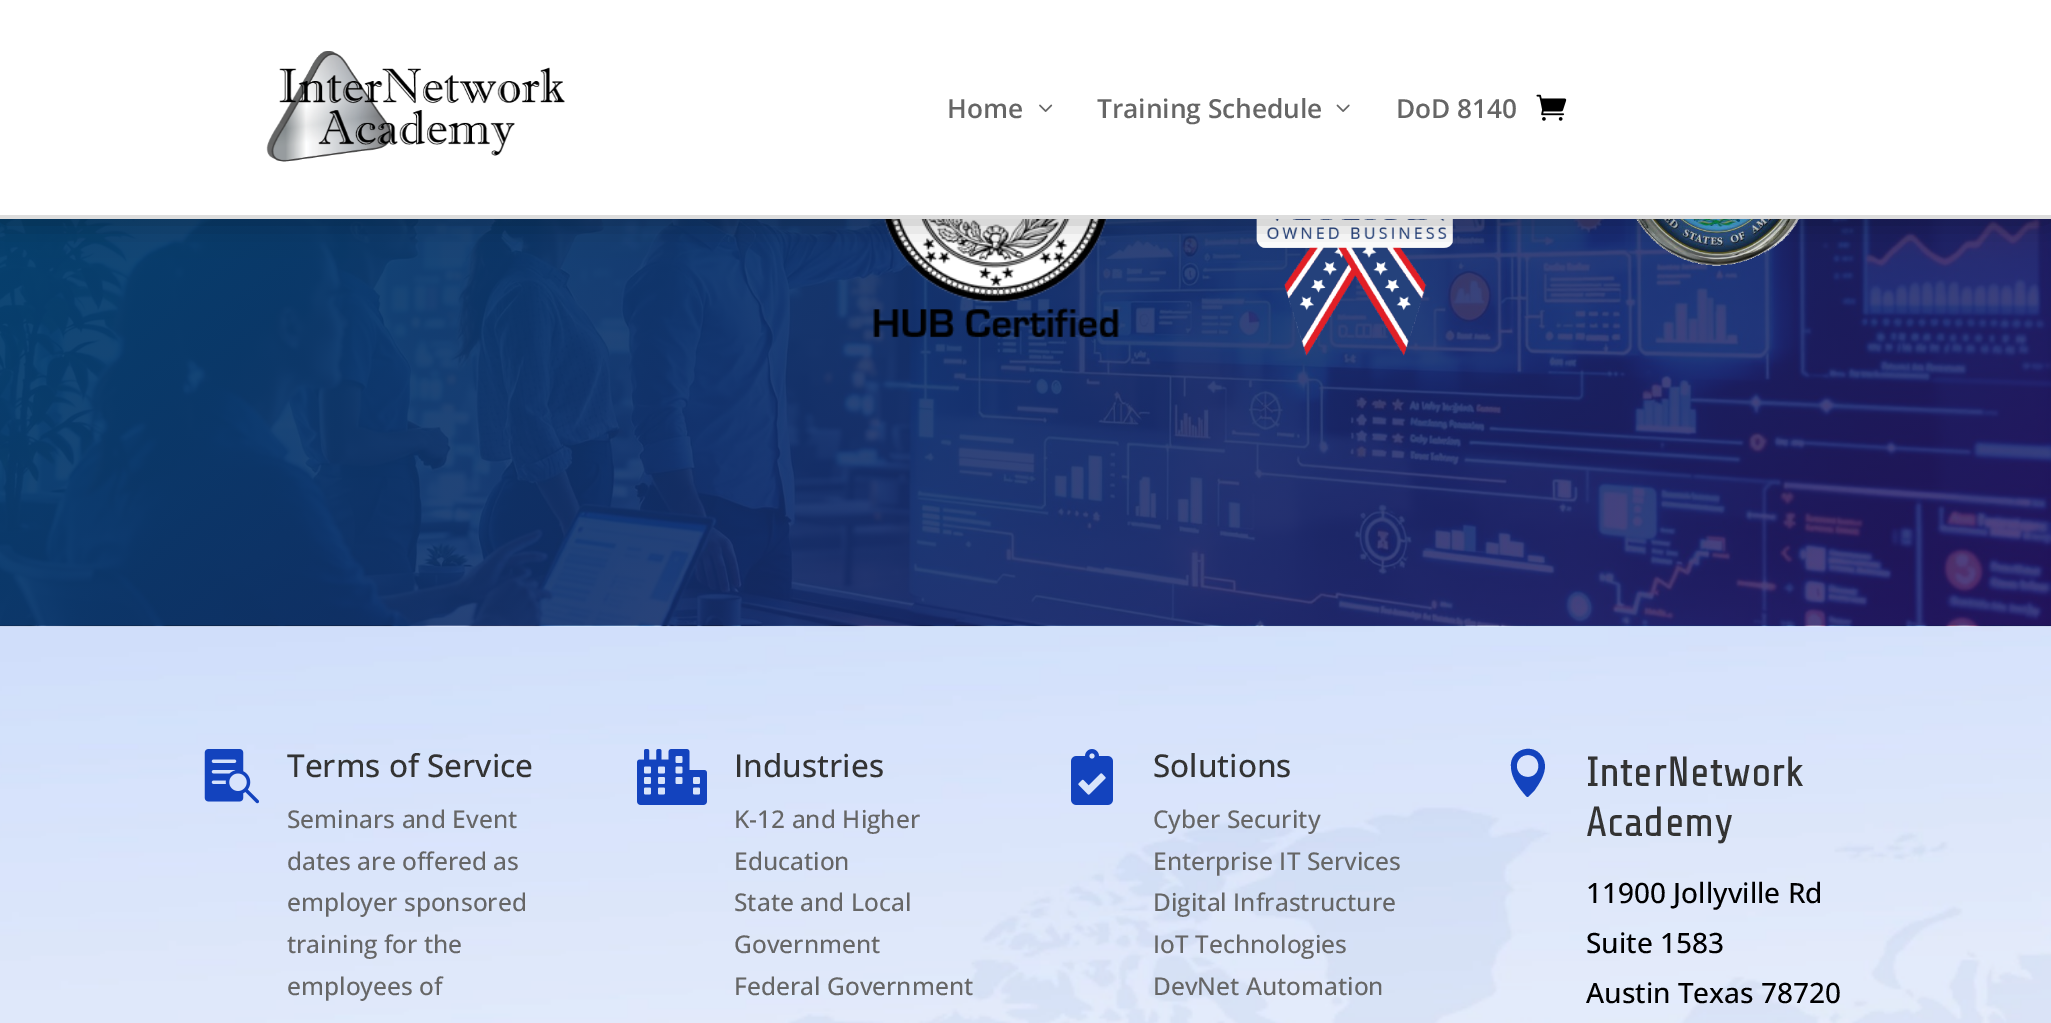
%!PS-Adobe-3.0
%%BoundingBox: 0 0 2051 1023
%%LanguageLevel: 3
%%Pages: 1
%%EndComments
%%BeginProlog
/setink { 3 { 255 div 3 1 roll } repeat setrgbcolor } def
/usefont { [ exch dup neg 0 0 3 -1 roll 0 0 ] selectfont } def
/drawtext { setink usefont moveto show } def
/fillbox { setink rectfill } def
/setalpha { dup .setfillconstantalpha .setstrokeconstantalpha } def
/rrect { 5 dict begin { /r /h /w /y /x } { exch def } forall
  x r add y moveto x w add y 2 copy h add r arct x w add y h add x 1 index r arct
  x y h add x y r arct x y 2 copy exch w add exch r arct closepath end } def
/softshadow { 12 dict begin { /a /b /q /h /w /y /x } { exch def } forall gsave /was 0 def
  9 -2 -9 { dup b mul 4 div /e exch def 1 sub .425 mul 2.718 exch exp 1 add a .99 .min exch div /now exch def
    1 1 now sub 1 was sub div sub setalpha /was now def
    w h .min e 2 mul add 0 gt { x e sub y e sub w e 2 mul add h e 2 mul add
      q e add b .6 mul add w h .min 2 div e add .min 0 .max rrect fill } if } for grestore end } def
/drawimage { 5 dict begin { /h /w /y /x /name } { exch def } forall
  gsave x y translate w h scale
  w h 8 [w 0 0 h 0 0] name (r) file false 3 colorimage grestore end } def
%%EndProlog
%%BeginSetup
<< /PageSize [2051 1023] /PageUsesTransparency true >> setpagedevice
%%EndSetup
%%Page: 1 1
0 .pushpdf14devicefilter
0 1023 translate 1 -1 scale
4 setmiterlimit
0 0 2051 1023 255 255 255 fillbox
(assets/img5.rgb) 0 219 2051 408 drawimage
(assets/img6.rgb) 873 219 246 119 drawimage
(assets/img7.rgb) 1256 219 197 137 drawimage
(assets/img8.rgb) 1636 219 164 47 drawimage
0 0 0 setink
0 4 2051 218 0 16 0.3 softshadow
0 0 2051 215 255 255 255 fillbox
0 215 2051 4 221 221 221 fillbox
(assets/img1.rgb) 266 51 299 111 drawimage
(Home) 947 118 /OpenSans-SemiBold 26.25 102 102 102 drawtext
(assets/img2.rgb) 1039 104 14 8 drawimage
(Training Schedule) 1097 118 /OpenSans-SemiBold 26.25 102 102 102 drawtext
(assets/img3.rgb) 1336 104 14 8 drawimage
(DoD 8140) 1396 118 /OpenSans-SemiBold 26.25 102 102 102 drawtext
(assets/img4.rgb) 1536 94 31 27 drawimage
(assets/img9.rgb) 0 626 2051 397 drawimage
(assets/img10.rgb) 204 749 55 55 drawimage
(Terms of Service) 287 777 /OpenSans-Medium 31.5 51 51 51 drawtext
(Seminars and Event) 287 828 /OpenSans-Medium 24.5 102 102 102 drawtext
(dates are offered as) 287 870 /OpenSans-Medium 24.5 102 102 102 drawtext
(employer sponsored) 287 911 /OpenSans-Medium 24.5 102 102 102 drawtext
(training for the) 287 953 /OpenSans-Medium 24.5 102 102 102 drawtext
(employees of) 287 995 /OpenSans-Medium 24.5 102 102 102 drawtext
(assets/img11.rgb) 637 749 70 56 drawimage
(Industries) 734 777 /OpenSans-Medium 31.5 51 51 51 drawtext
(K-12 and Higher) 734 828 /OpenSans-Medium 24.5 102 102 102 drawtext
(Education) 734 870 /OpenSans-Medium 24.5 102 102 102 drawtext
(State and Local) 734 911 /OpenSans-Medium 24.5 102 102 102 drawtext
(Government) 734 953 /OpenSans-Medium 24.5 102 102 102 drawtext
(Federal Government) 734 995 /OpenSans-Medium 24.5 102 102 102 drawtext
(assets/img12.rgb) 1071 749 42 56 drawimage
(Solutions) 1153 777 /OpenSans-Medium 31.5 51 51 51 drawtext
(Cyber Security) 1153 828 /OpenSans-Medium 24.5 102 102 102 drawtext
(Enterprise IT Services) 1153 870 /OpenSans-Medium 24.5 102 102 102 drawtext
(Digital Infrastructure) 1153 911 /OpenSans-Medium 24.5 102 102 102 drawtext
(IoT Technologies) 1153 953 /OpenSans-Medium 24.5 102 102 102 drawtext
(DevNet Automation) 1153 995 /OpenSans-Medium 24.5 102 102 102 drawtext
19 67 190 setink
1527 797 moveto 1528 797 lineto 1534 791 lineto 1541 781 1551 766 1540 754 curveto 1530 743 1510 751 1511 766 curveto 1511 778 1519 788 1527 797 curveto closepath 1528 755 moveto 1542 755 1542 777 1528 777 curveto 1513 777 1513 755 1528 755 curveto closepath fill
(InterNetwork) 1586 786 /ShareTech-Regular 42 51 51 51 drawtext
(Academy) 1586 836 /ShareTech-Regular 42 51 51 51 drawtext
(11900 Jollyville Rd) 1586 903 /OpenSans-Medium 28 0 0 0 drawtext
(Suite 1583) 1586 953 /OpenSans-Medium 28 0 0 0 drawtext
(Austin Texas 78720) 1586 1003 /OpenSans-Medium 28 0 0 0 drawtext
.poppdf14devicefilter showpage
%%EOF
